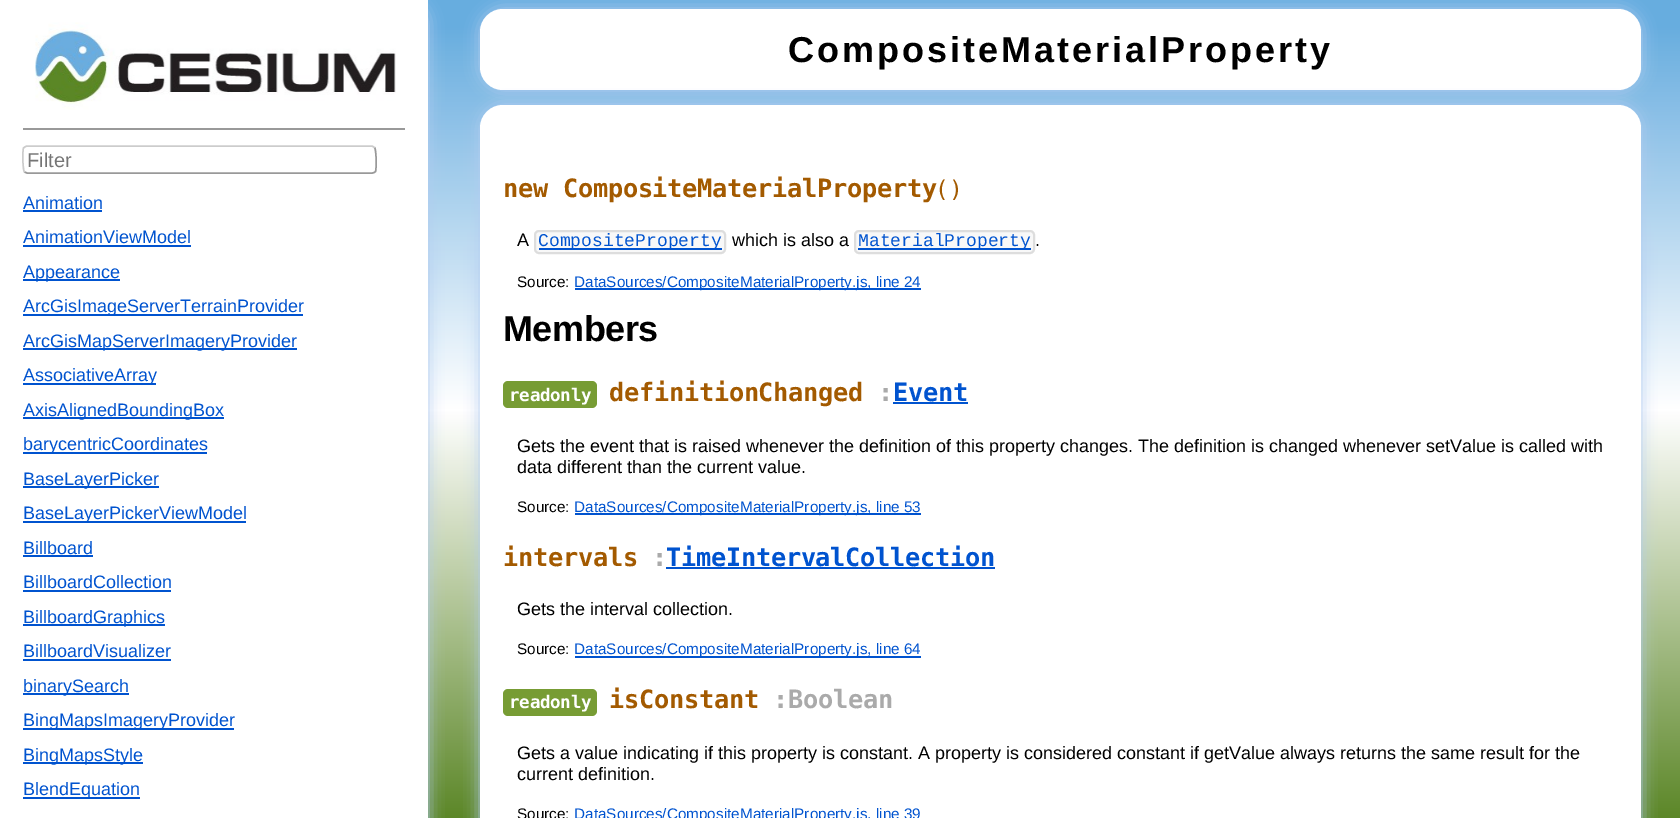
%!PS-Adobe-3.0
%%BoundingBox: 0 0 1680 818
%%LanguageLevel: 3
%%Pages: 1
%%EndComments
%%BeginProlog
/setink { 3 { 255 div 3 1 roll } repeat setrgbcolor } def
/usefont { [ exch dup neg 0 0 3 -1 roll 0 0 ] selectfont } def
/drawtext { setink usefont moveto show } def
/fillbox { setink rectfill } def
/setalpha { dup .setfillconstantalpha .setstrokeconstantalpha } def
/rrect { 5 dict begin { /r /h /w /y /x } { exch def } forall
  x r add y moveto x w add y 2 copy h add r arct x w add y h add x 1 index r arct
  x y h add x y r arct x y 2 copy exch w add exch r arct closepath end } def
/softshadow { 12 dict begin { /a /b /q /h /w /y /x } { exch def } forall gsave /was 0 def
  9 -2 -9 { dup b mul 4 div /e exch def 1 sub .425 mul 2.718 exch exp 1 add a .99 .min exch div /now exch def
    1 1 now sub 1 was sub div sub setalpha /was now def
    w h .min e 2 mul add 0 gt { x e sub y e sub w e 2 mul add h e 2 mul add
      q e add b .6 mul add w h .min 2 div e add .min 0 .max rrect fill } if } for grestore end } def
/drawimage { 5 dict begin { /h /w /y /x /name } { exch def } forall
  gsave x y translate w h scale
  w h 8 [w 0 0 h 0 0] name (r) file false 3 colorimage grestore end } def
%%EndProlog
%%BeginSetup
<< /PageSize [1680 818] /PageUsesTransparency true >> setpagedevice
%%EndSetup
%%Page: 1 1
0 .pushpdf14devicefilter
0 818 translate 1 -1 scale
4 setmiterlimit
0 0 1680 818 255 255 255 fillbox
gsave 428 0 moveto 1680 0 lineto 1680 818 lineto 428 818 lineto closepath clip newpath
<< /ShadingType 2 /ColorSpace /DeviceRGB /Coords [840 0 840 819] /Extend [true true] /Function << /FunctionType 3 /Domain [0 1] /Functions [<< /FunctionType 2 /Domain [0 1] /C0 [0.404 0.678 0.875] /C1 [0.404 0.678 0.875] /N 1 >> << /FunctionType 2 /Domain [0 1] /C0 [0.404 0.678 0.875] /C1 [1 1 1] /N 1 >> << /FunctionType 2 /Domain [0 1] /C0 [1 1 1] /C1 [0.361 0.529 0.153] /N 1 >>] /Bounds [0.03 0.5] /Encode [0 1 0 1 0 1] >> >> shfill grestore
178 204 240 setink
-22 0 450 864 23 7.5 1 softshadow
0 0 428 818 255 255 255 fillbox
(assets/img1.rgb) 35 22 361 88 drawimage
23 128 382 2 153 153 153 fillbox
1.5 setlinewidth
374.5 147.5 moveto 376.5 149.5 376.5 169.5 375.5 171.5 curveto 374.5 172.5 373.5 173 372 173 curveto 27 173 lineto 24.5 172 lineto stroke
204 204 204 setink
24.5 172 moveto 22.5 170 22.5 150 23.5 148 curveto 24.5 147 25.5 146.5 27 146 curveto 372 146 lineto 374.5 147.5 lineto stroke
(Filter) 27 167 /LiberationSans-Regular 20 117 117 117 drawtext
(Animation) 23 209 /LiberationSans-Regular 18 0 83 207 drawtext
23 210 79 2 0 83 207 fillbox
(AnimationViewModel) 23 243 /LiberationSans-Regular 18 0 83 207 drawtext
23 245 168 2 0 83 207 fillbox
23 279 97 2 0 83 207 fillbox
(Appearance) 23 278 /LiberationSans-Regular 18 0 83 207 drawtext
23 314 280 2 0 83 207 fillbox
(ArcGisImageServerTerrainProvider) 23 312 /LiberationSans-Regular 18 0 83 207 drawtext
23 348 274 2 0 83 207 fillbox
(ArcGisMapServerImageryProvider) 23 347 /LiberationSans-Regular 18 0 83 207 drawtext
23 383 133 2 0 83 207 fillbox
(AssociativeArray) 23 381 /LiberationSans-Regular 18 0 83 207 drawtext
23 417 201 2 0 83 207 fillbox
(AxisAlignedBoundingBox) 23 416 /LiberationSans-Regular 18 0 83 207 drawtext
23 452 184 2 0 83 207 fillbox
(barycentricCoordinates) 23 450 /LiberationSans-Regular 18 0 83 207 drawtext
23 486 136 2 0 83 207 fillbox
(BaseLayerPicker) 23 485 /LiberationSans-Regular 18 0 83 207 drawtext
23 521 223 2 0 83 207 fillbox
(BaseLayerPickerViewModel) 23 519 /LiberationSans-Regular 18 0 83 207 drawtext
(Billboard) 23 554 /LiberationSans-Regular 18 0 83 207 drawtext
23 555 70 2 0 83 207 fillbox
(BillboardCollection) 23 588 /LiberationSans-Regular 18 0 83 207 drawtext
23 590 148 2 0 83 207 fillbox
23 624 142 2 0 83 207 fillbox
(BillboardGraphics) 23 623 /LiberationSans-Regular 18 0 83 207 drawtext
(BillboardVisualizer) 23 657 /LiberationSans-Regular 18 0 83 207 drawtext
23 659 148 2 0 83 207 fillbox
23 693 106 2 0 83 207 fillbox
(binarySearch) 23 692 /LiberationSans-Regular 18 0 83 207 drawtext
23 728 211 2 0 83 207 fillbox
(BingMapsImageryProvider) 23 726 /LiberationSans-Regular 18 0 83 207 drawtext
23 762 120 2 0 83 207 fillbox
(BingMapsStyle) 23 761 /LiberationSans-Regular 18 0 83 207 drawtext
23 797 117 2 0 83 207 fillbox
(BlendEquation) 23 795 /LiberationSans-Regular 18 0 83 207 drawtext
178 204 240 setink
480 9 1161 81 23 7.5 1 softshadow
255 255 255 setink
480 9 1161 81 23 rrect fill
/LiberationSans-Bold 36 usefont
0 0 0 setink
788 62 moveto 3 0 (CompositeMaterialProperty) ashow
178 204 240 setink
480 105 1161 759 23 7.5 1 softshadow
255 255 255 setink
480 105 1161 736 23 rrect fill
/DejaVuSansMono-Bold 25.25 usefont
163 90 0 setink
503 197 moveto -0.25 0 (new CompositeMaterialProperty) ashow
/DejaVuSansMono-Regular 23 usefont
935 197 moveto -0.25 0 (\(\)) ashow
(A) 517 246 /LiberationSans-Regular 18 0 0 0 drawtext
248 248 248 setink
535 231 190 22 4 rrect gsave fill grestore
221 221 221 setink
2 setlinewidth
stroke
539 248 183 2 0 83 207 fillbox
(CompositeProperty) 538 246 /LiberationMono-Regular 18 0 83 207 drawtext
(which is also a) 732 246 /LiberationSans-Regular 18 0 0 0 drawtext
248 248 248 setink
855 231 179 22 4 rrect gsave fill grestore
221 221 221 setink
stroke
858 248 173 2 0 83 207 fillbox
(MaterialProperty) 858 246 /LiberationMono-Regular 18 0 83 207 drawtext
(.) 1035 246 /LiberationSans-Regular 18 0 0 0 drawtext
(Source:) 517 287 /LiberationSans-Regular 15.3 0 0 0 drawtext
575 288 346 2 0 83 207 fillbox
(DataSources/CompositeMaterialProperty.js, line 24) 574 287 /LiberationSans-Regular 15.3 0 83 207 drawtext
/LiberationSans-Bold 36 usefont
0 0 0 setink
503 341 moveto -0.5 0 (Members) ashow
119 156 52 setink
503 381 94 27 5 rrect fill
/DejaVuSansMono-Bold 17.5 usefont
255 255 255 setink
509 401 moveto -0.25 0 (readonly) ashow
/DejaVuSansMono-Bold 25.25 usefont
163 90 0 setink
609 401 moveto -0.25 0 (definitionChanged) ashow
170 170 170 setink
878 401 moveto -0.25 0 (:) ashow
0 83 207 setink
893 401 moveto -0.25 0 (Event) ashow
893 402 75 2 0 83 207 fillbox
(Gets the event that is raised whenever the definition of this property changes. The definition is changed whenever setValue is called with) 517 452 /LiberationSans-Regular 18 0 0 0 drawtext
(data different than the current value.) 517 473 /LiberationSans-Regular 18 0 0 0 drawtext
(Source:) 517 512 /LiberationSans-Regular 15.3 0 0 0 drawtext
575 513 346 2 0 83 207 fillbox
(DataSources/CompositeMaterialProperty.js, line 53) 574 512 /LiberationSans-Regular 15.3 0 83 207 drawtext
/DejaVuSansMono-Bold 25.25 usefont
163 90 0 setink
503 566 moveto -0.25 0 (intervals) ashow
170 170 170 setink
652 566 moveto -0.25 0 (:) ashow
666 567 329 2 0 83 207 fillbox
666 566 moveto -0.25 0 (TimeIntervalCollection) ashow
(Gets the interval collection.) 517 615 /LiberationSans-Regular 18 0 0 0 drawtext
(Source:) 517 654 /LiberationSans-Regular 15.3 0 0 0 drawtext
575 656 346 2 0 83 207 fillbox
(DataSources/CompositeMaterialProperty.js, line 64) 574 654 /LiberationSans-Regular 15.3 0 83 207 drawtext
119 156 52 setink
503 689 94 27 5 rrect fill
/DejaVuSansMono-Bold 17.5 usefont
255 255 255 setink
509 708 moveto -0.25 0 (readonly) ashow
/DejaVuSansMono-Bold 25.25 usefont
163 90 0 setink
609 708 moveto -0.25 0 (isConstant) ashow
170 170 170 setink
773 708 moveto -0.25 0 (:Boolean) ashow
(Gets a value indicating if this property is constant. A property is considered constant if getValue always returns the same result for the) 517 759 /LiberationSans-Regular 18 0 0 0 drawtext
(current definition.) 517 780 /LiberationSans-Regular 18 0 0 0 drawtext
(Source:) 517 819 /LiberationSans-Regular 15.3 0 0 0 drawtext
(DataSources/CompositeMaterialProperty.js, line 39) 574 819 /LiberationSans-Regular 15.3 0 83 207 drawtext
.poppdf14devicefilter showpage
%%EOF
